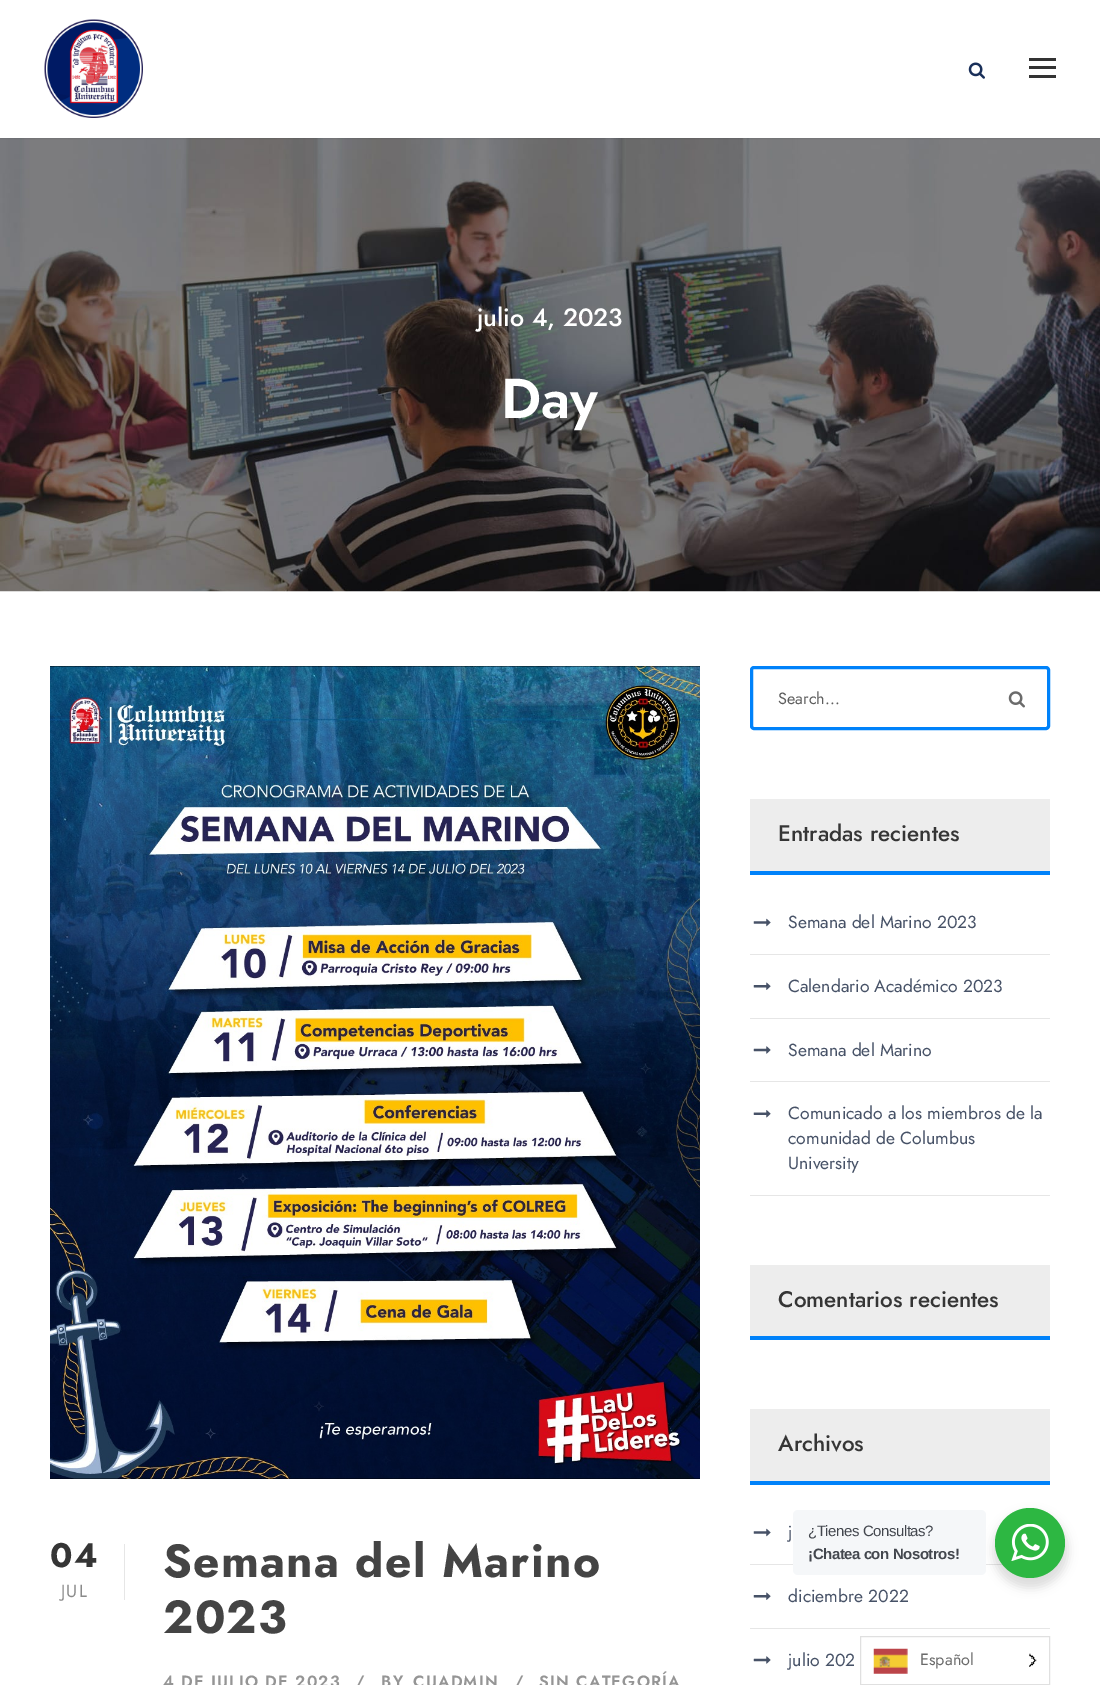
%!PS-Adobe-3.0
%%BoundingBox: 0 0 1100 1685
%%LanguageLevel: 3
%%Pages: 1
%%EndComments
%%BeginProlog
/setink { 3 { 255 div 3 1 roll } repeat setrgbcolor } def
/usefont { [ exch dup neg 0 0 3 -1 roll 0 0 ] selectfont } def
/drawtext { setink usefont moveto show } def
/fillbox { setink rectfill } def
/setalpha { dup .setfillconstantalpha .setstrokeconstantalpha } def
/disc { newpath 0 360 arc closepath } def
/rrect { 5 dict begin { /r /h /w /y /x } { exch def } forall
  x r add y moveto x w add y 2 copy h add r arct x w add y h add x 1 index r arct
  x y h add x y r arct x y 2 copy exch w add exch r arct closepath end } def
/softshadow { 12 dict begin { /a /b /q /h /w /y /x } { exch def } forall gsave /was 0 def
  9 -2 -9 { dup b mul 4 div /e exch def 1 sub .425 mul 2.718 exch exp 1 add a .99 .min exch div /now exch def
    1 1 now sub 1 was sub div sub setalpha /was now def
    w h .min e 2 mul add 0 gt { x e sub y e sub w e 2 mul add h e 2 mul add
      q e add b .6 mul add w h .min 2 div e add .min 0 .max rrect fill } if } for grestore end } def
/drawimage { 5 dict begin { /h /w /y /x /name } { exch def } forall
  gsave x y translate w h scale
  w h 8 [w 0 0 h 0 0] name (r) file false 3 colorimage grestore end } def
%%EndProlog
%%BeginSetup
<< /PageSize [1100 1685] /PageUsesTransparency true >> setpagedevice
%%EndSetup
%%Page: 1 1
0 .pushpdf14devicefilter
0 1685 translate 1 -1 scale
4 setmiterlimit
0 0 1100 1685 255 255 255 fillbox
(assets/img3.rgb) 0 138 1100 454 drawimage
0 0 0 setink
0 1 1100 138 0 1 0.1 softshadow
0 0 1100 138 255 255 255 fillbox
(assets/img1.rgb) 44 19 99 99 drawimage
(assets/img2.rgb) 968 62 17 17 drawimage
1029 58 27 3 51 51 51 fillbox
1029 66 27 3 51 51 51 fillbox
1029 75 27 3 51 51 51 fillbox
(julio 4, 2023) 477 326 /Jost-Medium 25 255 255 255 drawtext
(Day) 501 418 /Jost-SemiBold 56 255 255 255 drawtext
50 666 650 813 0 0 0 fillbox
(assets/img4.rgb) 50 666 650 813 drawimage
124 1544 1 56 230 230 230 fillbox
/Jost-Bold 34 usefont
53 53 53 setink
50 1567 moveto 1.25 0 (04) ashow
/Jost-Regular 17.5 usefont
138 138 138 setink
61 1597 moveto 1.25 0 (JUL) ashow
/Jost-Bold 46.25 usefont
68 68 68 setink
163 1577 moveto 1.25 0 (Semana del Marino) ashow
163 1633 moveto 1.25 0 (2023) ashow
/Jost-SemiBold 16.25 usefont
149 149 149 setink
163 1687 moveto 1.25 0 (4 DE JULIO DE 2023) ashow
355 1687 moveto 1.25 0 (/) ashow
381 1687 moveto 1.25 0 (BY) ashow
413 1687 moveto 1.25 0 (CUADMIN) ashow
514 1687 moveto 1.25 0 (/) ashow
539 1687 moveto 1.25 0 (SIN CATEGORÍA) ashow
0 130 250 setink
3 setlinewidth
751.5 667.5 297 61 2.5 rrect stroke
(Search...) 778 704 /Jost-Regular 16.25 94 94 94 drawtext
(assets/img5.rgb) 1008 691 17 17 drawimage
750 799 300 72 237 237 237 fillbox
750 871 300 4 0 130 250 fillbox
(Entradas recientes) 778 841 /Jost-Medium 22.5 53 53 53 drawtext
750 954 300 1 230 230 230 fillbox
(assets/img6.rgb) 753 918 18 9 drawimage
(Semana del Marino 2023) 788 928 /Jost-Regular 17.5 71 82 103 drawtext
750 1018 300 1 230 230 230 fillbox
(assets/img7.rgb) 753 982 18 8 drawimage
(Calendario Académico 2023) 788 992 /Jost-Regular 17.5 71 82 103 drawtext
750 1081 300 1 230 230 230 fillbox
(assets/img8.rgb) 753 1046 18 8 drawimage
(Semana del Marino) 788 1056 /Jost-Regular 17.5 71 82 103 drawtext
750 1195 300 1 230 230 230 fillbox
(assets/img9.rgb) 753 1110 18 8 drawimage
(Comunicado a los miembros de la) 788 1119 /Jost-Regular 17.5 71 82 103 drawtext
(comunidad de Columbus) 788 1144 /Jost-Regular 17.5 71 82 103 drawtext
(University) 788 1169 /Jost-Regular 17.5 71 82 103 drawtext
750 1265 300 71 237 237 237 fillbox
750 1336 300 4 0 130 250 fillbox
(Comentarios recientes) 778 1307 /Jost-Medium 22.5 53 53 53 drawtext
750 1409 300 72 237 237 237 fillbox
750 1481 300 4 0 130 250 fillbox
(Archivos) 778 1451 /Jost-Medium 22.5 53 53 53 drawtext
750 1564 253 1 230 230 230 fillbox
(assets/img6.rgb) 753 1528 18 9 drawimage
(j) 788 1538 /Jost-Regular 17.5 71 82 103 drawtext
750 1628 300 1 230 230 230 fillbox
(assets/img7.rgb) 753 1592 18 8 drawimage
(diciembre 2022) 788 1602 /Jost-Regular 17.5 71 82 103 drawtext
(assets/img8.rgb) 753 1656 18 8 drawimage
(julio 202) 788 1666 /Jost-Regular 17.5 71 82 103 drawtext
0 0 0 setink
993 1513 75 75 37.5 5 0.14 softshadow
245 247 249 setink
793 1510 193 65 5 rrect fill
/LiberationSans-Regular 15 usefont
67 71 78 setink
808 1536 moveto -0.45 0 (¿Tienes Consultas?) ashow
/LiberationSans-Bold 15 usefont
808 1559 moveto -0.45 0 (¡Chatea con Nosotros!) ashow
45 183 66 setink
1030 1543 35 disc fill
(assets/img10.rgb) 1011 1524 38 37 drawimage
224 224 224 setink
1 setlinewidth
860.5 1636.5 189 48 rectstroke
(assets/img11.rgb) 873 1648 35 26 drawimage
(Español) 920 1665 /Jost-Regular 16.25 107 107 107 drawtext
(assets/img12.rgb) 1029 1653 8 14 drawimage
.poppdf14devicefilter showpage
%%EOF
